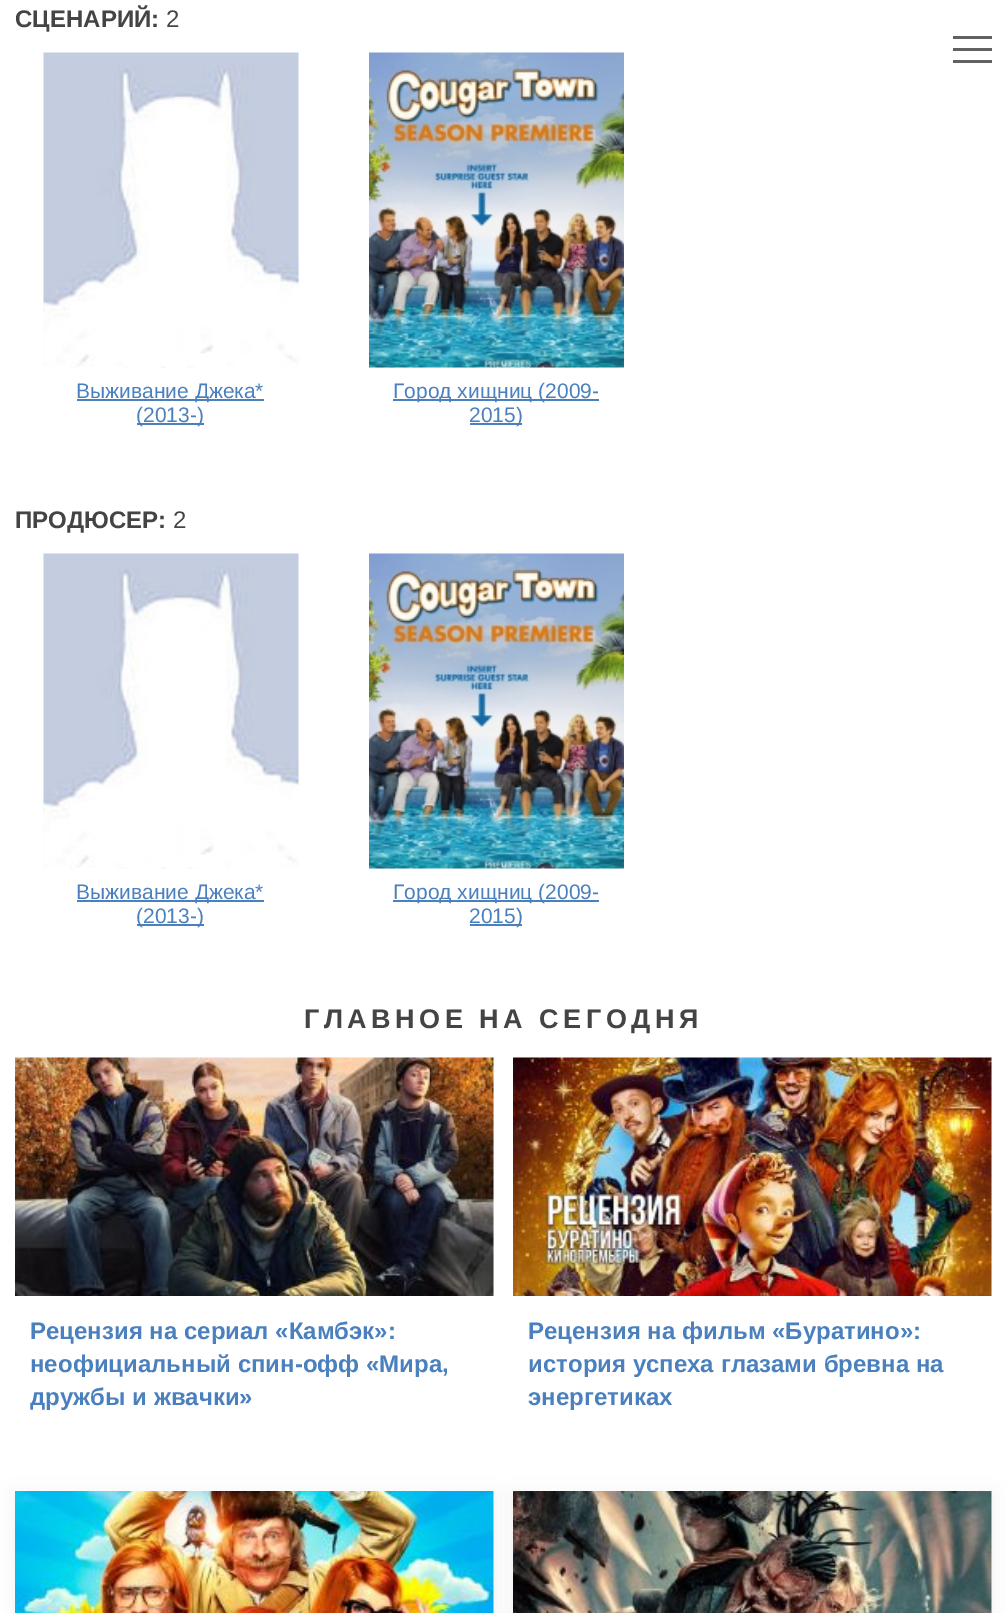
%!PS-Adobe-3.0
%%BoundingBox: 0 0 1006 1613
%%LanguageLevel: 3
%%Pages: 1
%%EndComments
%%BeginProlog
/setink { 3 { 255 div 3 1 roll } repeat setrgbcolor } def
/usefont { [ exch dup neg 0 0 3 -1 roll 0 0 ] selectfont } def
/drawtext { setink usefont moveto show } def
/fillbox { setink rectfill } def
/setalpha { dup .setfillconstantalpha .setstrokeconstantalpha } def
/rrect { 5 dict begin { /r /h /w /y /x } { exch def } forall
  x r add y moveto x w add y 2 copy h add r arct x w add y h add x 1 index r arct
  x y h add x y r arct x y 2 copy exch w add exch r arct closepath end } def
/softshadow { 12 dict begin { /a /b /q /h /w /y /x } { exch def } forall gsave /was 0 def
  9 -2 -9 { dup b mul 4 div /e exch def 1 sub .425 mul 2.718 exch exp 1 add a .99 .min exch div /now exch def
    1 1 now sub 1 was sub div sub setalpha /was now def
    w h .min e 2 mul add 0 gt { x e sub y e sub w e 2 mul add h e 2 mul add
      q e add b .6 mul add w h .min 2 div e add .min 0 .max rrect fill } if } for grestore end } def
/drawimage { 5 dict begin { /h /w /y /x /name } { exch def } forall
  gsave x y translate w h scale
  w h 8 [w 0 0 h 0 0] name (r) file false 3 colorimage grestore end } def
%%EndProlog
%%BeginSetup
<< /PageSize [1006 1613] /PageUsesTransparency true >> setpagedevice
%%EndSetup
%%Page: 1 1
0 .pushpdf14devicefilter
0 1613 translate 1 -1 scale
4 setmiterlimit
0 0 1006 1613 255 255 255 fillbox
(СЦЕНАРИЙ:) 15 27 /LiberationSans-Bold 24 68 68 68 drawtext
(2) 166 27 /LiberationSans-Regular 24 68 68 68 drawtext
(assets/img1.rgb) 43 52 256 316 drawimage
77 399 187 2 74 128 190 fillbox
(Выживание Джека*) 76 398 /LiberationSans-Regular 21 74 128 190 drawtext
137 423 67 2 74 128 190 fillbox
(\(2013-\)) 136 422 /LiberationSans-Regular 21 74 128 190 drawtext
(assets/img2.rgb) 369 52 255 316 drawimage
393 399 206 2 74 128 190 fillbox
(Город хищниц \(2009-) 393 398 /LiberationSans-Regular 21 74 128 190 drawtext
470 423 52 2 74 128 190 fillbox
(2015\)) 469 422 /LiberationSans-Regular 21 74 128 190 drawtext
(ПРОДЮСЕР:) 15 528 /LiberationSans-Bold 24 68 68 68 drawtext
(2) 173 528 /LiberationSans-Regular 24 68 68 68 drawtext
(assets/img1.rgb) 43 553 256 316 drawimage
77 900 187 2 74 128 190 fillbox
(Выживание Джека*) 76 899 /LiberationSans-Regular 21 74 128 190 drawtext
137 924 67 2 74 128 190 fillbox
(\(2013-\)) 136 923 /LiberationSans-Regular 21 74 128 190 drawtext
(assets/img2.rgb) 369 553 255 316 drawimage
393 900 206 2 74 128 190 fillbox
(Город хищниц \(2009-) 393 899 /LiberationSans-Regular 21 74 128 190 drawtext
470 924 52 2 74 128 190 fillbox
(2015\)) 469 923 /LiberationSans-Regular 21 74 128 190 drawtext
/LiberationSans-Bold 27 usefont
68 68 68 setink
304 1028 moveto 4.5 0 (ГЛАВНОЕ НА СЕГОДНЯ) ashow
(assets/img3.rgb) 15 1057 479 239 drawimage
(Рецензия на сериал «Камбэк»:) 30 1339 /LiberationSans-Bold 24 74 128 190 drawtext
(неофициальный спин-офф «Мира,) 30 1372 /LiberationSans-Bold 24 74 128 190 drawtext
(дружбы и жвачки») 30 1405 /LiberationSans-Bold 24 74 128 190 drawtext
(assets/img4.rgb) 513 1057 479 239 drawimage
(Рецензия на фильм «Буратино»:) 528 1339 /LiberationSans-Bold 24 74 128 190 drawtext
(история успеха глазами бревна на) 528 1372 /LiberationSans-Bold 24 74 128 190 drawtext
(энергетиках) 528 1405 /LiberationSans-Bold 24 74 128 190 drawtext
0 0 0 setink
15 1494 479 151 0 10.5 0.05 softshadow
(assets/img5.rgb) 15 1491 479 122 drawimage
513 1494 479 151 0 10.5 0.05 softshadow
(assets/img6.rgb) 513 1491 479 122 drawimage
953 48 39 3 97 97 97 fillbox
953 36 39 3 97 97 97 fillbox
953 60 39 3 97 97 97 fillbox
.poppdf14devicefilter showpage
%%EOF
